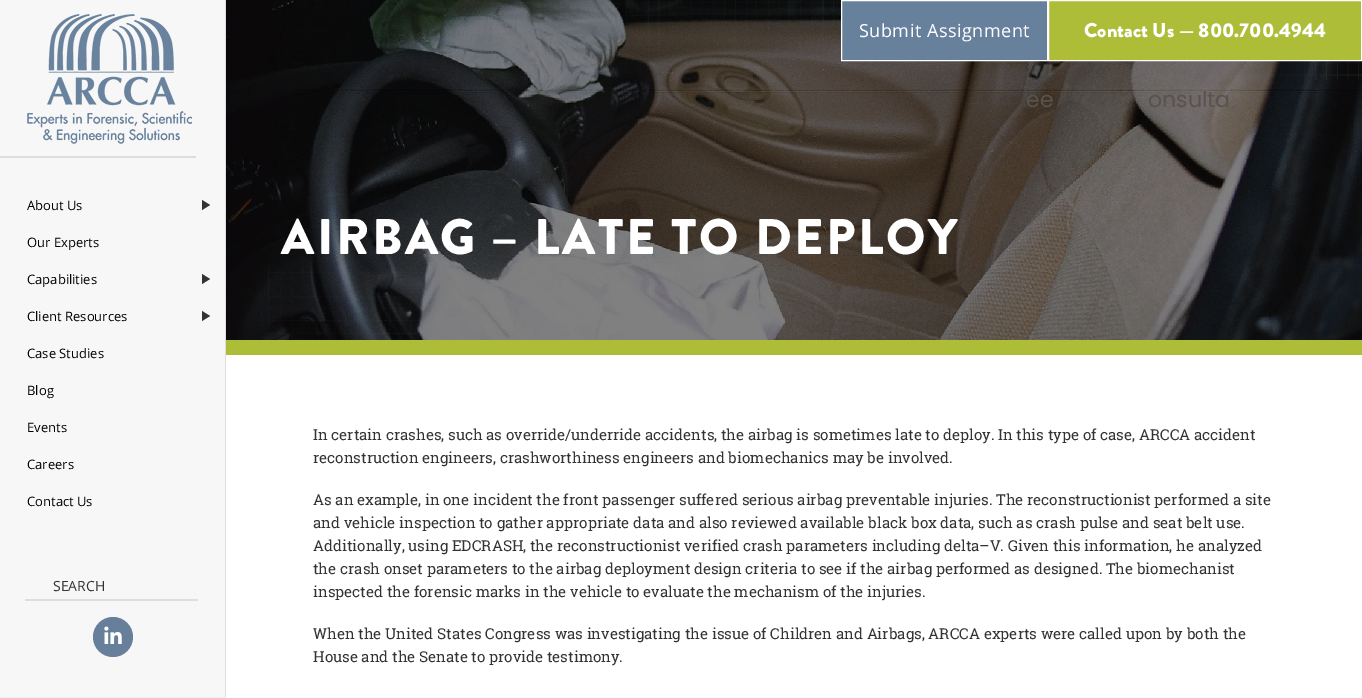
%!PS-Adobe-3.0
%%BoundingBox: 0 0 1362 698
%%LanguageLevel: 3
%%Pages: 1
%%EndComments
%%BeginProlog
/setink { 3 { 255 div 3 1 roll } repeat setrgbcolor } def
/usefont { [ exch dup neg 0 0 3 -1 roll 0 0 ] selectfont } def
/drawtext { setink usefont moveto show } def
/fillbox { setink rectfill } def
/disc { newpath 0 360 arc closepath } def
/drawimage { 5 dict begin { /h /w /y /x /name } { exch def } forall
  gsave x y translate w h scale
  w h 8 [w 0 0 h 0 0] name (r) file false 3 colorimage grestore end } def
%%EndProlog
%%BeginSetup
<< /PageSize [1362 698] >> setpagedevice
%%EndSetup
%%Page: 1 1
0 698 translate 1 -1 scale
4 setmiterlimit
0 0 1362 698 255 255 255 fillbox
0 0 225 697 247 247 247 fillbox
225 0 1 698 221 221 221 fillbox
0 697 226 1 238 238 238 fillbox
(assets/img1.rgb) 27 14 165 130 drawimage
0 156 196 2 221 221 221 fillbox
(About Us) 27 210 /OpenSans-Regular 13 0 0 0 drawtext
51 51 51 setink
202 210 moveto 202 200 lineto 210 205 lineto closepath fill
(Our Experts) 27 247 /OpenSans-Regular 13 0 0 0 drawtext
(Capabilities) 27 284 /OpenSans-Regular 13 0 0 0 drawtext
51 51 51 setink
202 284 moveto 202 274 lineto 210 279 lineto closepath 202 321 moveto 202 311 lineto 210 316 lineto closepath fill
(Client Resources) 27 321 /OpenSans-Regular 13 0 0 0 drawtext
(Case Studies) 27 358 /OpenSans-Regular 13 0 0 0 drawtext
(Blog) 27 395 /OpenSans-Regular 13 0 0 0 drawtext
(Events) 27 432 /OpenSans-Regular 13 0 0 0 drawtext
(Careers) 27 469 /OpenSans-Regular 13 0 0 0 drawtext
(Contact Us) 27 506 /OpenSans-Regular 13 0 0 0 drawtext
25 599 173 2 221 221 221 fillbox
(SEARCH) 53 591 /OpenSans-Regular 14 51 51 51 drawtext
104 127 155 setink
113 637 20 disc fill
(assets/img2.rgb) 104 626 18 18 drawimage
(assets/img3.rgb) 226 0 1136 340 drawimage
226 340 1136 15 173 189 55 fillbox
103 129 157 setink
841.5 0.5 moveto 1047.5 0.5 lineto 1047.5 60.5 lineto 841.5 60.5 lineto closepath gsave fill grestore
255 255 255 setink
stroke
/OpenSans-Regular 18 usefont
859 37 moveto 0.5 0 (Submit Assignment) ashow
173 189 55 setink
1048.5 0.5 moveto 1361.5 0.5 lineto 1361.5 60.5 lineto 1048.5 60.5 lineto closepath gsave fill grestore
255 255 255 setink
stroke
(Contact Us — 800.700.4944) 1084 37 /BrandonGrotesque-Black 20 255 255 255 drawtext
/BrandonGrotesque-Black 50 usefont
281 254 moveto 2.5 0 (AIRBAG – LATE TO DEPLOY) ashow
(In certain crashes, such as override/underride accidents, the airbag is sometimes late to deploy. In this type of case, ARCCA accident) 313 440 /RobotoSlab-Regular 15 51 51 51 drawtext
(reconstruction engineers, crashworthiness engineers and biomechanics may be involved.) 313 463 /RobotoSlab-Regular 15 51 51 51 drawtext
(As an example, in one incident the front passenger suffered serious airbag preventable injuries. The reconstructionist performed a site) 313 505 /RobotoSlab-Regular 15 51 51 51 drawtext
(and vehicle inspection to gather appropriate data and also reviewed available black box data, such as crash pulse and seat belt use.) 313 528 /RobotoSlab-Regular 15 51 51 51 drawtext
(Additionally, using EDCRASH, the reconstructionist verified crash parameters including delta–V. Given this information, he analyzed) 313 551 /RobotoSlab-Regular 15 51 51 51 drawtext
(the crash onset parameters to the airbag deployment design criteria to see if the airbag performed as designed. The biomechanist) 313 574 /RobotoSlab-Regular 15 51 51 51 drawtext
(inspected the forensic marks in the vehicle to evaluate the mechanism of the injuries.) 313 597 /RobotoSlab-Regular 15 51 51 51 drawtext
(When the United States Congress was investigating the issue of Children and Airbags, ARCCA experts were called upon by both the) 313 639 /RobotoSlab-Regular 15 51 51 51 drawtext
(House and the Senate to provide testimony.) 313 662 /RobotoSlab-Regular 15 51 51 51 drawtext
(ee) 1026 107 /Poppins-Regular 22 89 82 77 drawtext
(onsulta) 1148 107 /Poppins-Regular 22 89 82 77 drawtext
showpage
%%EOF
